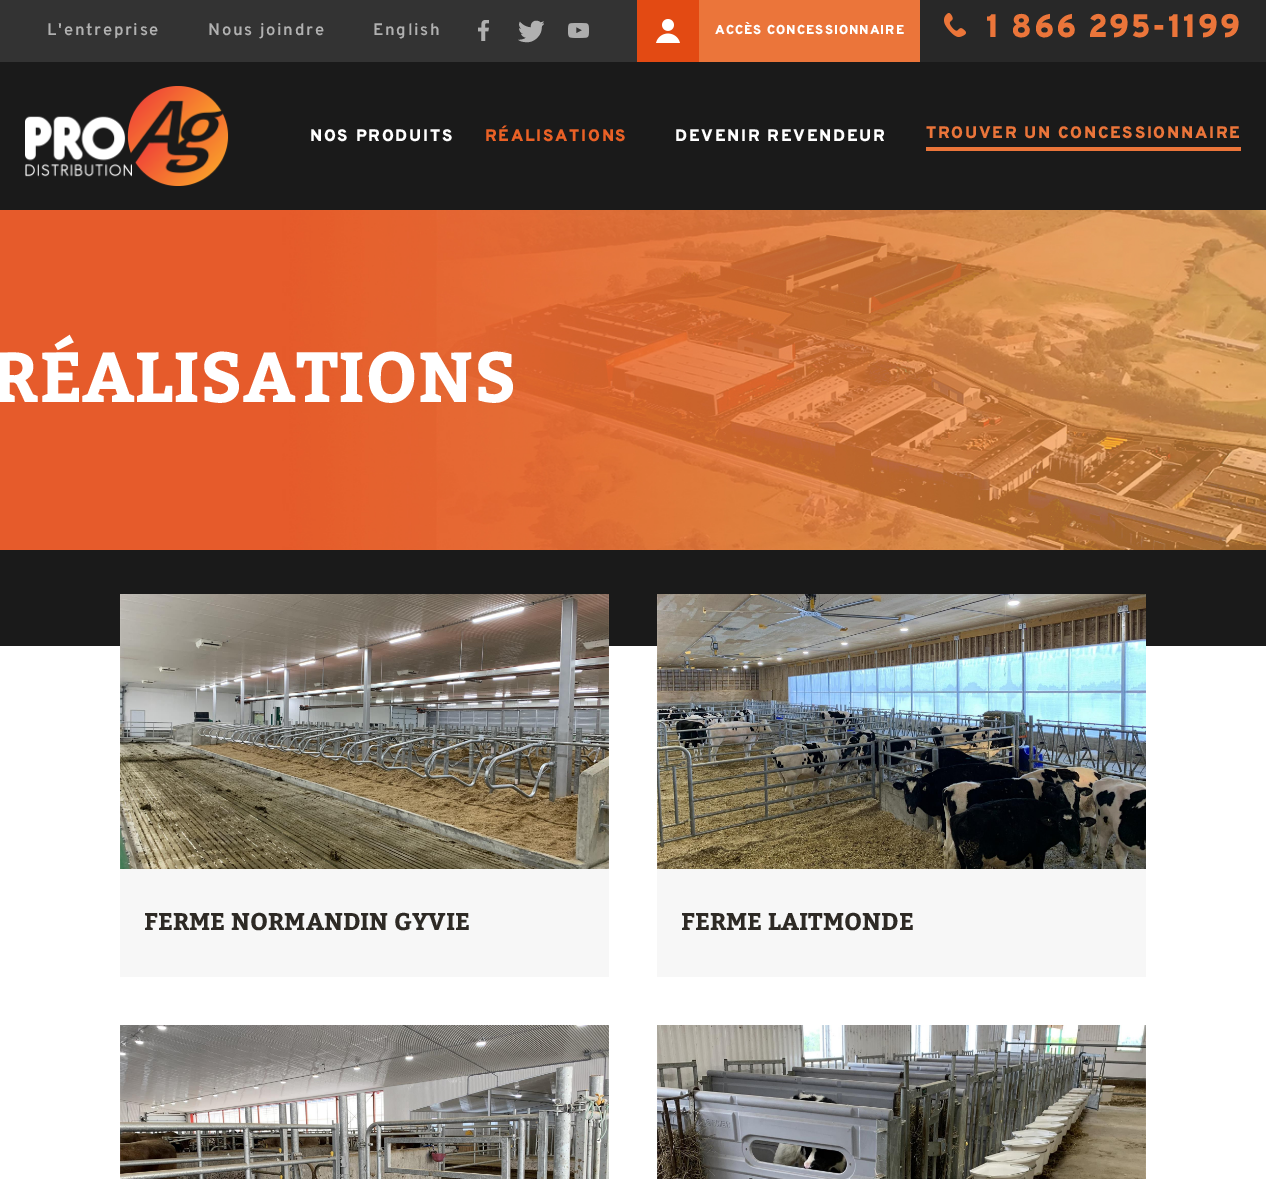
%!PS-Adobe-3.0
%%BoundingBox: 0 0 1266 1179
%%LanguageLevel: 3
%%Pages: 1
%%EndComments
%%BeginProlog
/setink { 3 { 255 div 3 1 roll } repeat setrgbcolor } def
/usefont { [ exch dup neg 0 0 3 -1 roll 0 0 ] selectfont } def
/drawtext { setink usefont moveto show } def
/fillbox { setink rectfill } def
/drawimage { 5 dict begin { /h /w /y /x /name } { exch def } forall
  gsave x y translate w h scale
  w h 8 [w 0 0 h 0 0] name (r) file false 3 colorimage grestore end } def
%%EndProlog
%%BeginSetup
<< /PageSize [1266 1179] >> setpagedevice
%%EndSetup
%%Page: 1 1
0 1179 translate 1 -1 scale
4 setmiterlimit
0 0 1266 1179 255 255 255 fillbox
0 0 637 62 51 51 51 fillbox
/Overpass-SemiBold 16.7 usefont
177 177 177 setink
47 35 moveto 1.7 0 (L'entreprise) ashow
208 35 moveto 1.7 0 (Nous joindre) ashow
373 35 moveto 1.7 0 (English) ashow
(assets/img1.rgb) 478 20 11 21 drawimage
(assets/img2.rgb) 518 20 26 23 drawimage
(assets/img3.rgb) 568 23 21 15 drawimage
699 0 221 62 235 117 58 fillbox
637 0 62 62 227 74 19 fillbox
(assets/img4.rgb) 656 19 24 24 drawimage
/Overpass-Black 13 usefont
255 255 255 setink
715 34 moveto 1 0 (ACCÈS CONCESSIONNAIRE) ashow
920 0 346 62 40 40 40 fillbox
(assets/img5.rgb) 944 13 22 24 drawimage
/Overpass-Black 32.5 usefont
235 117 58 setink
986 37 moveto 1.6 0 (1 866 295-1199) ashow
0 62 1266 148 26 26 26 fillbox
(assets/img6.rgb) 25 86 204 100 drawimage
/Overpass-Black 16.7 usefont
255 255 255 setink
310 141 moveto 1.7 0 (NOS PRODUITS) ashow
234 97 38 setink
485 141 moveto 1.7 0 (RÉALISATIONS) ashow
255 255 255 setink
675 141 moveto 1.7 0 (DEVENIR REVENDEUR) ashow
926 147 315 4 235 117 58 fillbox
926 138 moveto 1.7 0 (TROUVER UN CONCESSIONNAIRE) ashow
(assets/img7.rgb) 0 210 1266 340 drawimage
(RÉALISATIONS) -9 402 /Kadwa-Bold 70.5 255 255 255 drawtext
0 550 1266 96 26 26 26 fillbox
120 869 489 108 247 247 247 fillbox
(assets/img8.rgb) 120 594 489 275 drawimage
(FERME NORMANDIN GYVIE) 144 930 /Kadwa-Bold 24.1 46 42 37 drawtext
657 869 489 108 247 247 247 fillbox
(assets/img9.rgb) 657 594 489 275 drawimage
(FERME LAITMONDE) 681 930 /Kadwa-Bold 24.1 46 42 37 drawtext
(assets/img10.rgb) 120 1025 489 154 drawimage
(assets/img11.rgb) 657 1025 489 154 drawimage
showpage
%%EOF
